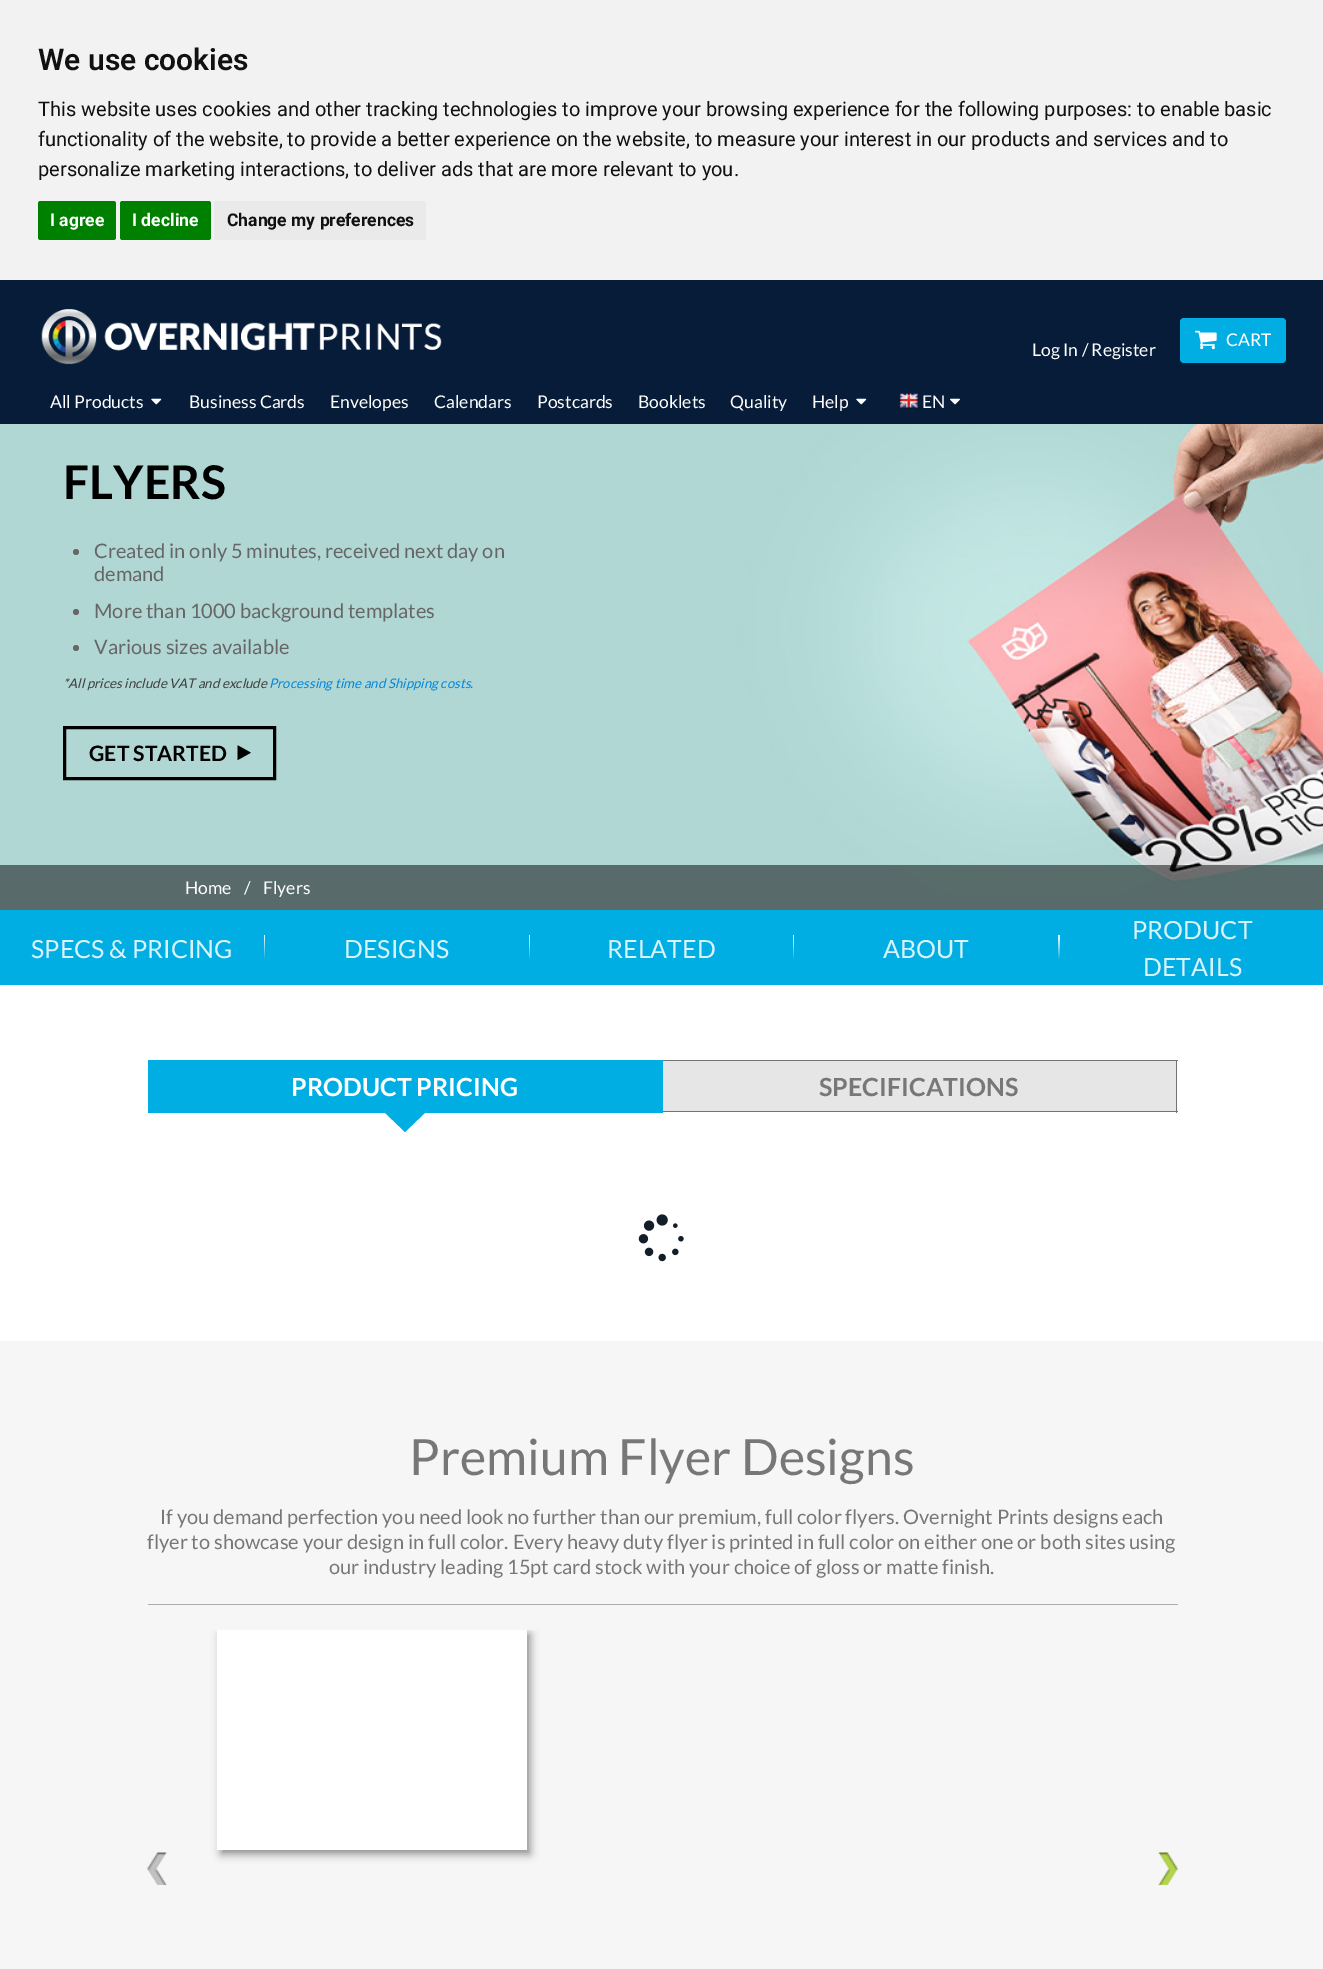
%!PS-Adobe-3.0
%%BoundingBox: 0 0 1323 1969
%%LanguageLevel: 3
%%Pages: 1
%%EndComments
%%BeginProlog
/setink { 3 { 255 div 3 1 roll } repeat setrgbcolor } def
/usefont { [ exch dup neg 0 0 3 -1 roll 0 0 ] selectfont } def
/drawtext { setink usefont moveto show } def
/fillbox { setink rectfill } def
/setalpha { dup .setfillconstantalpha .setstrokeconstantalpha } def
/disc { newpath 0 360 arc closepath } def
/rrect { 5 dict begin { /r /h /w /y /x } { exch def } forall
  x r add y moveto x w add y 2 copy h add r arct x w add y h add x 1 index r arct
  x y h add x y r arct x y 2 copy exch w add exch r arct closepath end } def
/softshadow { 12 dict begin { /a /b /q /h /w /y /x } { exch def } forall gsave /was 0 def
  9 -2 -9 { dup b mul 4 div /e exch def 1 sub .425 mul 2.718 exch exp 1 add a .99 .min exch div /now exch def
    1 1 now sub 1 was sub div sub setalpha /was now def
    w h .min e 2 mul add 0 gt { x e sub y e sub w e 2 mul add h e 2 mul add
      q e add b .6 mul add w h .min 2 div e add .min 0 .max rrect fill } if } for grestore end } def
/drawimage { 5 dict begin { /h /w /y /x /name } { exch def } forall
  gsave x y translate w h scale
  w h 8 [w 0 0 h 0 0] name (r) file false 3 colorimage grestore end } def
%%EndProlog
%%BeginSetup
<< /PageSize [1323 1969] /PageUsesTransparency true >> setpagedevice
%%EndSetup
%%Page: 1 1
0 .pushpdf14devicefilter
0 1969 translate 1 -1 scale
4 setmiterlimit
0 0 1323 1969 255 255 255 fillbox
0 0 1323 280 242 242 242 fillbox
(We use cookies) 38 70 /Roboto-SemiBold 30 17 17 17 drawtext
(This website uses cookies and other tracking technologies to improve your browsing experience for the following purposes: to enable basic) 38 116 /Roboto-Regular 20 17 17 17 drawtext
(functionality of the website, to provide a better experience on the website, to measure your interest in our products and services and to) 38 146 /Roboto-Regular 20 17 17 17 drawtext
(personalize marketing interactions, to deliver ads that are more relevant to you.) 38 176 /Roboto-Regular 20 17 17 17 drawtext
0 128 0 setink
38 201 78 39 2.5 rrect fill
(I agree) 50 226 /Roboto-Bold 17.5 255 255 255 drawtext
0 128 0 setink
120 201 91 39 2.5 rrect fill
(I decline) 132 226 /Roboto-Bold 17.5 255 255 255 drawtext
234 234 234 setink
214 201 212 39 2.5 rrect fill
(Change my preferences) 227 226 /Roboto-Bold 17.5 17 17 17 drawtext
0 280 1323 144 6 28 56 fillbox
1 174 227 setink
1180 318 106 45 4 rrect fill
(assets/img1.rgb) 1195 330 22 20 drawimage
(CART) 1226 346 /Lato-Regular 17.5 255 255 255 drawtext
(Log In / Register) 1032 356 /Lato-Regular 17.5 255 255 255 drawtext
(assets/img2.rgb) 41 309 401 56 drawimage
(All Products) 50 408 /Lato-Regular 17.5 255 255 255 drawtext
(assets/img3.rgb) 151 398 11 7 drawimage
(Business Cards) 189 408 /Lato-Regular 17.5 255 255 255 drawtext
(Envelopes) 330 408 /Lato-Regular 17.5 255 255 255 drawtext
(Calendars) 434 408 /Lato-Regular 17.5 255 255 255 drawtext
(Postcards) 537 408 /Lato-Regular 17.5 255 255 255 drawtext
(Booklets) 638 408 /Lato-Regular 17.5 255 255 255 drawtext
(Quality) 730 408 /Lato-Regular 17.5 255 255 255 drawtext
(Help) 812 408 /Lato-Regular 17.5 255 255 255 drawtext
(assets/img3.rgb) 856 398 11 7 drawimage
(assets/img4.rgb) 899 393 19 16 drawimage
(EN) 922 408 /Lato-Regular 17.5 255 255 255 drawtext
(assets/img5.rgb) 950 398 10 7 drawimage
(assets/img6.rgb) 0 424 1323 486 drawimage
(FLYERS) 63 499 /Lato-Bold 46.5 0 0 0 drawtext
102 102 102 setink
76 552 3 disc fill
(Created in only 5 minutes, received next day on) 94 558 /Lato-Regular 20 102 102 102 drawtext
(demand) 94 581 /Lato-Regular 20 102 102 102 drawtext
76 612 3 disc fill
(More than 1000 background templates) 94 618 /Lato-Regular 20 102 102 102 drawtext
76 648 3 disc fill
(Various sizes available) 94 654 /Lato-Regular 20 102 102 102 drawtext
(*All prices include VAT and exclude) 63 688 /Lato-Italic 13.3 62 62 63 drawtext
(Processing time and Shipping costs.) 269 688 /Lato-Italic 13.3 3 134 221 drawtext
0 0 0 setink
3 setlinewidth
64.5 727.5 210 51 rectstroke
(GET STARTED) 89 761 /Lato-Bold 21.25 0 0 0 drawtext
(assets/img7.rgb) 237 745 14 15 drawimage
0.5 setalpha
0 865 1323 45 0 0 0 fillbox
1 setalpha
(Home) 185 894 /Lato-Regular 17.5 255 255 255 drawtext
(/) 244 894 /Lato-Regular 17.5 255 255 255 drawtext
(Flyers) 263 894 /Lato-Regular 17.5 255 255 255 drawtext
0 910 1323 75 1 174 227 fillbox
(SPECS & PRICING) 31 958 /Lato-Regular 25 217 243 251 drawtext
gsave 264 935 moveto 265 935 lineto 265 960 lineto 264 960 lineto closepath clip newpath
<< /ShadingType 2 /ColorSpace /DeviceRGB /Coords [264 935 264 960] /Extend [true true] /Function << /FunctionType 2 /Domain [0 1] /C0 [1 1 1] /C1 [0.004 0.682 0.89] /N 1 >> >> shfill grestore
(DESIGNS) 344 958 /Lato-Regular 25 217 243 251 drawtext
gsave 529 935 moveto 530 935 lineto 530 960 lineto 529 960 lineto closepath clip newpath
<< /ShadingType 2 /ColorSpace /DeviceRGB /Coords [529 935 529 960] /Extend [true true] /Function << /FunctionType 2 /Domain [0 1] /C0 [1 1 1] /C1 [0.004 0.682 0.89] /N 1 >> >> shfill grestore
(RELATED) 607 958 /Lato-Regular 25 217 243 251 drawtext
gsave 793 935 moveto 794 935 lineto 794 960 lineto 793 960 lineto closepath clip newpath
<< /ShadingType 2 /ColorSpace /DeviceRGB /Coords [793 935 793 960] /Extend [true true] /Function << /FunctionType 2 /Domain [0 1] /C0 [1 1 1] /C1 [0.004 0.682 0.89] /N 1 >> >> shfill grestore
(ABOUT) 883 958 /Lato-Regular 25 217 243 251 drawtext
gsave 1058 935 moveto 1059 935 lineto 1059 960 lineto 1058 960 lineto closepath clip newpath
<< /ShadingType 2 /ColorSpace /DeviceRGB /Coords [1058 935 1058 960] /Extend [true true] /Function << /FunctionType 2 /Domain [0 1] /C0 [1 1 1] /C1 [0.004 0.682 0.89] /N 1 >> >> shfill grestore
gsave 1059 935 moveto 1060 935 lineto 1060 960 lineto 1059 960 lineto closepath clip newpath
<< /ShadingType 2 /ColorSpace /DeviceRGB /Coords [1059 935 1059 960] /Extend [true true] /Function << /FunctionType 2 /Domain [0 1] /C0 [1 1 1] /C1 [0.004 0.682 0.89] /N 1 >> >> shfill grestore
(PRODUCT) 1132 939 /Lato-Regular 25 217 243 251 drawtext
(DETAILS) 1143 976 /Lato-Regular 25 217 243 251 drawtext
148 1060 515 53 1 174 227 fillbox
(PRODUCT PRICING) 291 1096 /Lato-Bold 25 255 255 255 drawtext
1 174 227 setink
380 1108 moveto 430 1108 lineto 405 1132 lineto closepath fill
663 1061 513 50 230 230 230 fillbox
663 1060 515 1 115 115 117 fillbox
1176 1060 1 53 115 115 117 fillbox
663 1111 515 1 115 115 117 fillbox
(SPECIFICATIONS) 819 1096 /Lato-Bold 25 119 119 119 drawtext
(assets/img8.rgb) 638 1214 46 48 drawimage
0 1341 1323 628 246 246 246 fillbox
(Premium Flyer Designs) 409 1475 /Lato-Regular 50 119 119 119 drawtext
(If you demand perfection you need look no further than our premium, full color flyers. Overnight Prints designs each) 160 1524 /Lato-Regular 20 119 119 119 drawtext
(flyer to showcase your design in full color. Every heavy duty flyer is printed in full color on either one or both sites using) 147 1549 /Lato-Regular 20 119 119 119 drawtext
(our industry leading 15pt card stock with your choice of gloss or matte finish.) 329 1574 /Lato-Regular 20 119 119 119 drawtext
148 1604 1030 1 172 172 172 fillbox
(assets/img9.rgb) 147 1852 20 34 drawimage
gsave
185 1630 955 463 rectclip
139 139 139 setink
221 1634 309 220 0 4.5 1 softshadow
grestore
217 1630 310 220 255 255 255 fillbox
(assets/img10.rgb) 1158 1852 20 34 drawimage
.poppdf14devicefilter showpage
%%EOF
